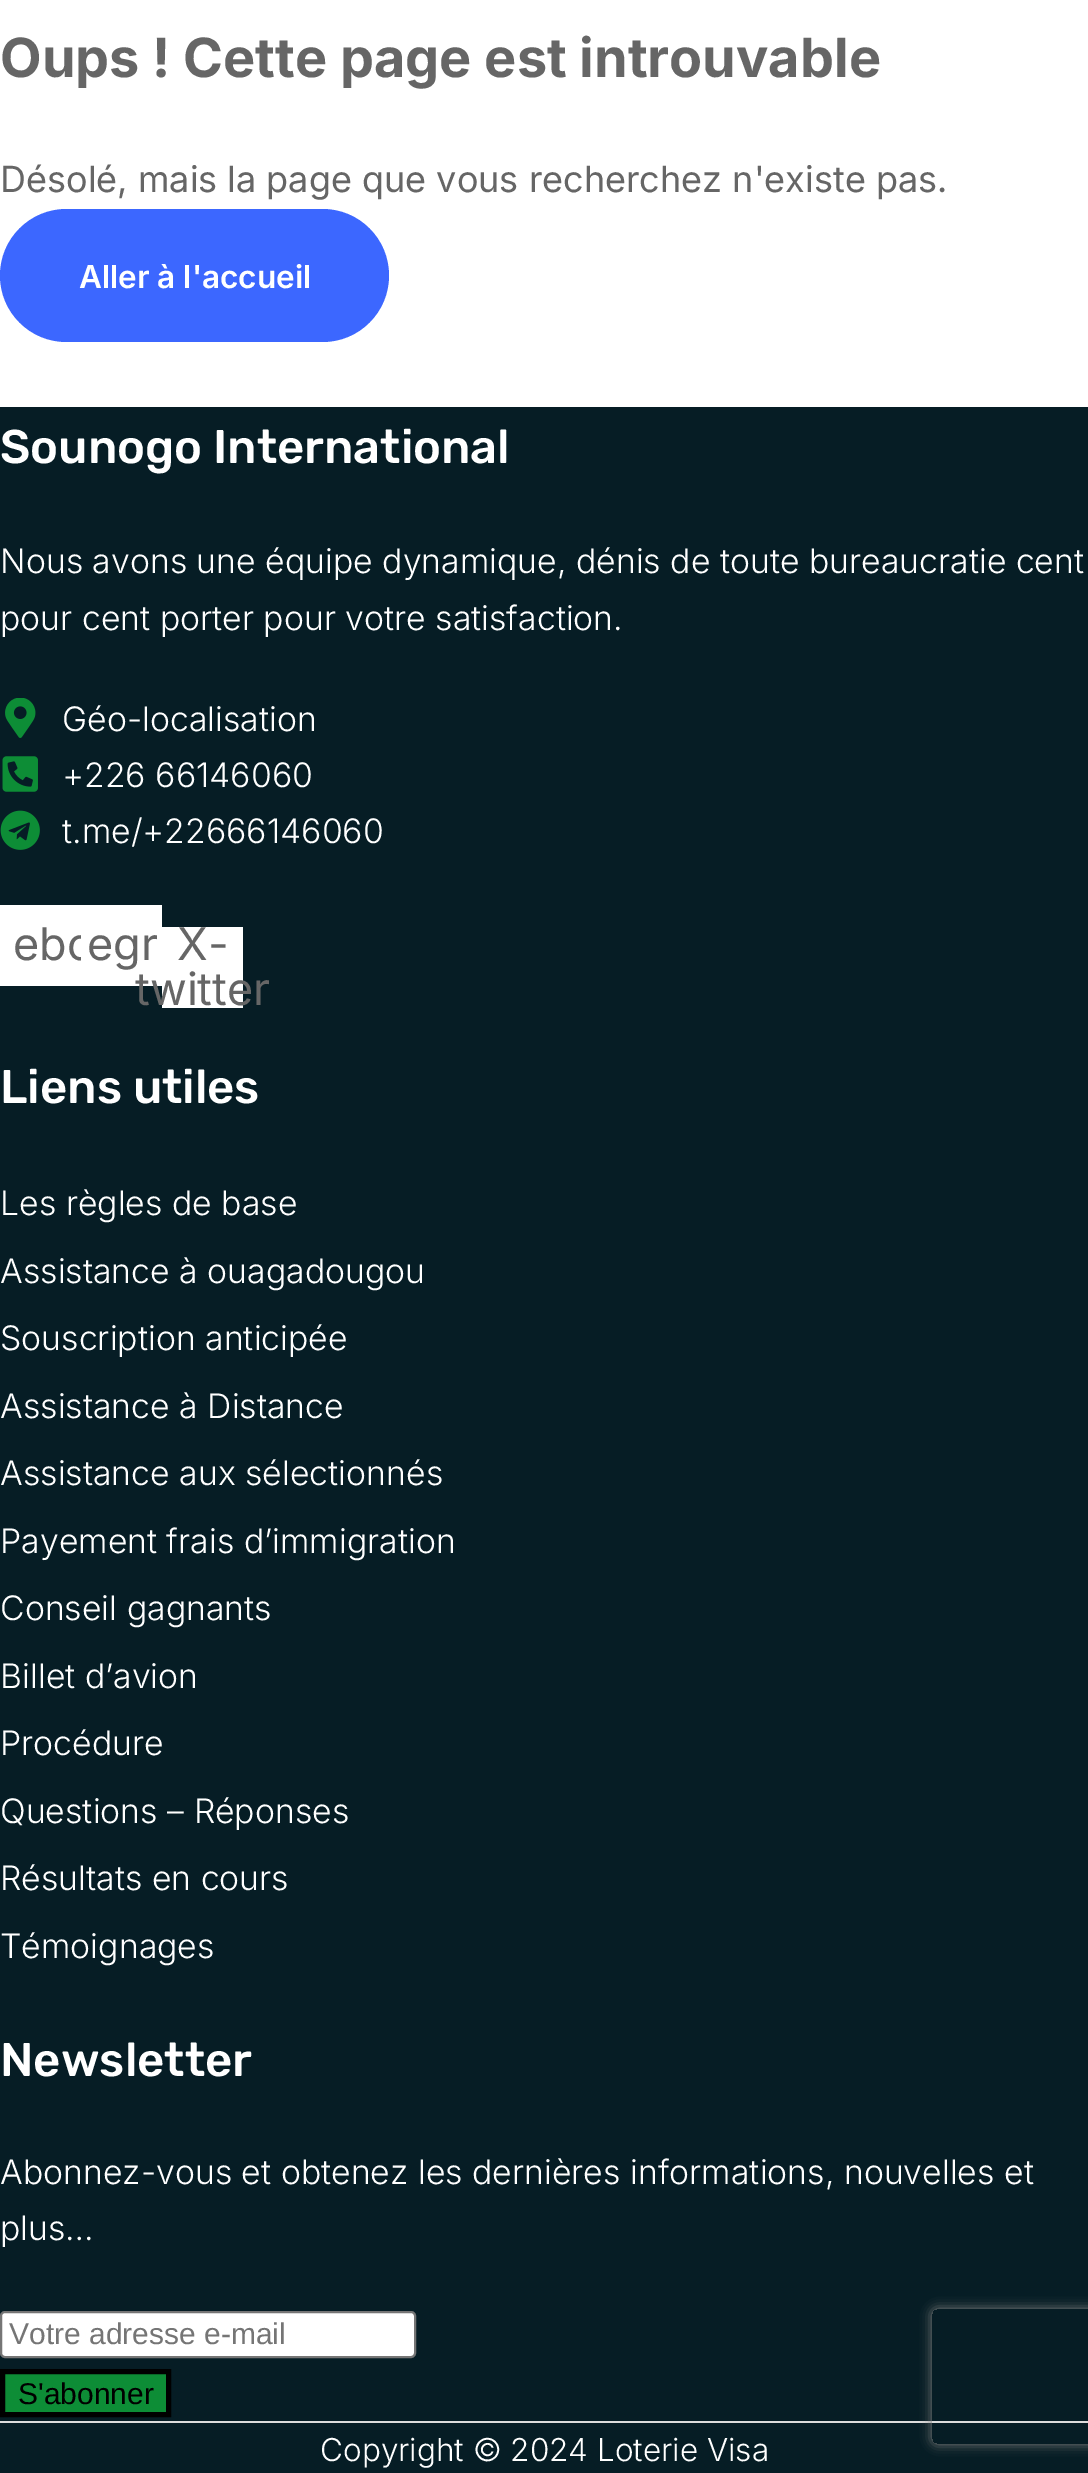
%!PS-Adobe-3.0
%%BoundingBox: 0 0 1088 2473
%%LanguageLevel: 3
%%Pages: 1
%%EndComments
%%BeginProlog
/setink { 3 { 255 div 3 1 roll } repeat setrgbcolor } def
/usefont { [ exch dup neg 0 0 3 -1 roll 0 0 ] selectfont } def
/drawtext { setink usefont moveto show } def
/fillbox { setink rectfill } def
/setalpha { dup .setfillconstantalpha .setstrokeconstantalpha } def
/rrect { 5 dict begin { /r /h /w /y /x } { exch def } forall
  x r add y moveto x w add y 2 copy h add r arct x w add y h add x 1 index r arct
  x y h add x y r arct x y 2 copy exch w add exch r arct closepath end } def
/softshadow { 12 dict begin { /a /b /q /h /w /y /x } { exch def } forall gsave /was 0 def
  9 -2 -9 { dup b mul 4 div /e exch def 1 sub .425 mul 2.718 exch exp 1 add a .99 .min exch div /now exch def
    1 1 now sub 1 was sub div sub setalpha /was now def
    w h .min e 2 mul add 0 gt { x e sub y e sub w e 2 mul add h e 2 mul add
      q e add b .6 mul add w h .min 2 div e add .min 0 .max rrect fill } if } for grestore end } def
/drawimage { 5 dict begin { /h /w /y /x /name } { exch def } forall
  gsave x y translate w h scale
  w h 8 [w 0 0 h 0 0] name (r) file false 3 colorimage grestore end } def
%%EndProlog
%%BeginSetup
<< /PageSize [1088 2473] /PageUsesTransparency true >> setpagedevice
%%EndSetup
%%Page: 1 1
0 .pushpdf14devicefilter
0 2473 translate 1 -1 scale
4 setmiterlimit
0 0 1088 2473 255 255 255 fillbox
(Oups ! Cette page est introuvable) 0 77 /Inter-Bold 54 102 102 102 drawtext
(Désolé, mais la page que vous recherchez n'existe pas.) 0 192 /Inter-Regular 36 102 102 102 drawtext
60 103 255 setink
0 209 389 133 66.5 rrect fill
(Aller à l'accueil) 79 288 /Inter-SemiBold 31.5 255 255 255 drawtext
0 407 1088 2066 6 29 37 fillbox
(Sounogo International) 0 463 /Rubik-Medium 47.25 255 255 255 drawtext
(Nous avons une équipe dynamique, dénis de toute bureaucratie cent) 0 573 /Inter-Light 33.75 255 255 255 drawtext
(pour cent porter pour votre satisfaction.) 0 630 /Inter-Light 33.75 255 255 255 drawtext
(assets/img1.rgb) 5 698 31 40 drawimage
(Géo-localisation) 62 731 /Inter-Light 33.75 255 255 255 drawtext
(assets/img2.rgb) 2 756 36 36 drawimage
(+226 66146060) 62 787 /Inter-Light 33.75 255 255 255 drawtext
(assets/img3.rgb) 0 810 40 40 drawimage
(t.me/+22666146060) 62 843 /Inter-Light 33.75 255 255 255 drawtext
0 905 81 81 255 255 255 fillbox
(ebo) 13 960 /Inter-Regular 45 102 102 102 drawtext
81 905 81 81 255 255 255 fillbox
(egr) 87 960 /Inter-Regular 45 102 102 102 drawtext
162 927 81 81 255 255 255 fillbox
(X-) 177 960 /Inter-Regular 45 102 102 102 drawtext
(twitter) 135 1005 /Inter-Regular 45 102 102 102 drawtext
(Liens utiles) 0 1103 /Rubik-Medium 47.25 255 255 255 drawtext
(Les règles de base) 0 1215 /Inter-Light 33.75 255 255 255 drawtext
(Assistance à ouagadougou) 0 1283 /Inter-Light 33.75 255 255 255 drawtext
(Souscription anticipée) 0 1350 /Inter-Light 33.75 255 255 255 drawtext
(Assistance à Distance) 0 1418 /Inter-Light 33.75 255 255 255 drawtext
(Assistance aux sélectionnés) 0 1485 /Inter-Light 33.75 255 255 255 drawtext
(Payement frais d’immigration) 0 1553 /Inter-Light 33.75 255 255 255 drawtext
(Conseil gagnants) 0 1620 /Inter-Light 33.75 255 255 255 drawtext
(Billet d’avion) 0 1688 /Inter-Light 33.75 255 255 255 drawtext
(Procédure) 0 1755 /Inter-Light 33.75 255 255 255 drawtext
(Questions – Réponses) 0 1823 /Inter-Light 33.75 255 255 255 drawtext
(Résultats en cours) 0 1890 /Inter-Light 33.75 255 255 255 drawtext
(Témoignages) 0 1958 /Inter-Light 33.75 255 255 255 drawtext
(Newsletter) 0 2076 /Rubik-Medium 47.25 255 255 255 drawtext
(Abonnez-vous et obtenez les dernières informations, nouvelles et) 0 2184 /Inter-Light 33.75 255 255 255 drawtext
(plus…) 0 2240 /Inter-Light 33.75 255 255 255 drawtext
1 2312 414 45 4 rrect gsave fill grestore
118 118 118 setink
2 setlinewidth
stroke
(Votre adresse e-mail) 9 2344 /LiberationSans-Regular 30 117 117 117 drawtext
13 141 54 setink
2.5 2371.5 moveto 168.5 2371.5 lineto 168.5 2414.5 lineto 2.5 2414.5 lineto closepath gsave fill grestore
0 0 0 setink
5 setlinewidth
stroke
(S'abonner) 18 2404 /LiberationSans-Regular 30 0 0 0 drawtext
0 2421 1088 2 221 221 221 fillbox
(Copyright © 2024 Loterie Visa) 320 2461 /Inter-Light 31.5 255 255 255 drawtext
gsave
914 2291 moveto 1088 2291 lineto 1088 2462 lineto 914 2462 lineto closepath 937 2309 moveto 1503 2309 lineto 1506 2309 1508 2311 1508 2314 curveto 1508 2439 lineto 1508 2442 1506 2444 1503 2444 curveto 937 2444 lineto 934 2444 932 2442 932 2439 curveto 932 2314 lineto 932 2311 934 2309 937 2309 curveto closepath eoclip newpath
128 128 128 setink
932 2309 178 135 5 5.5 1 softshadow
grestore
.poppdf14devicefilter showpage
%%EOF
